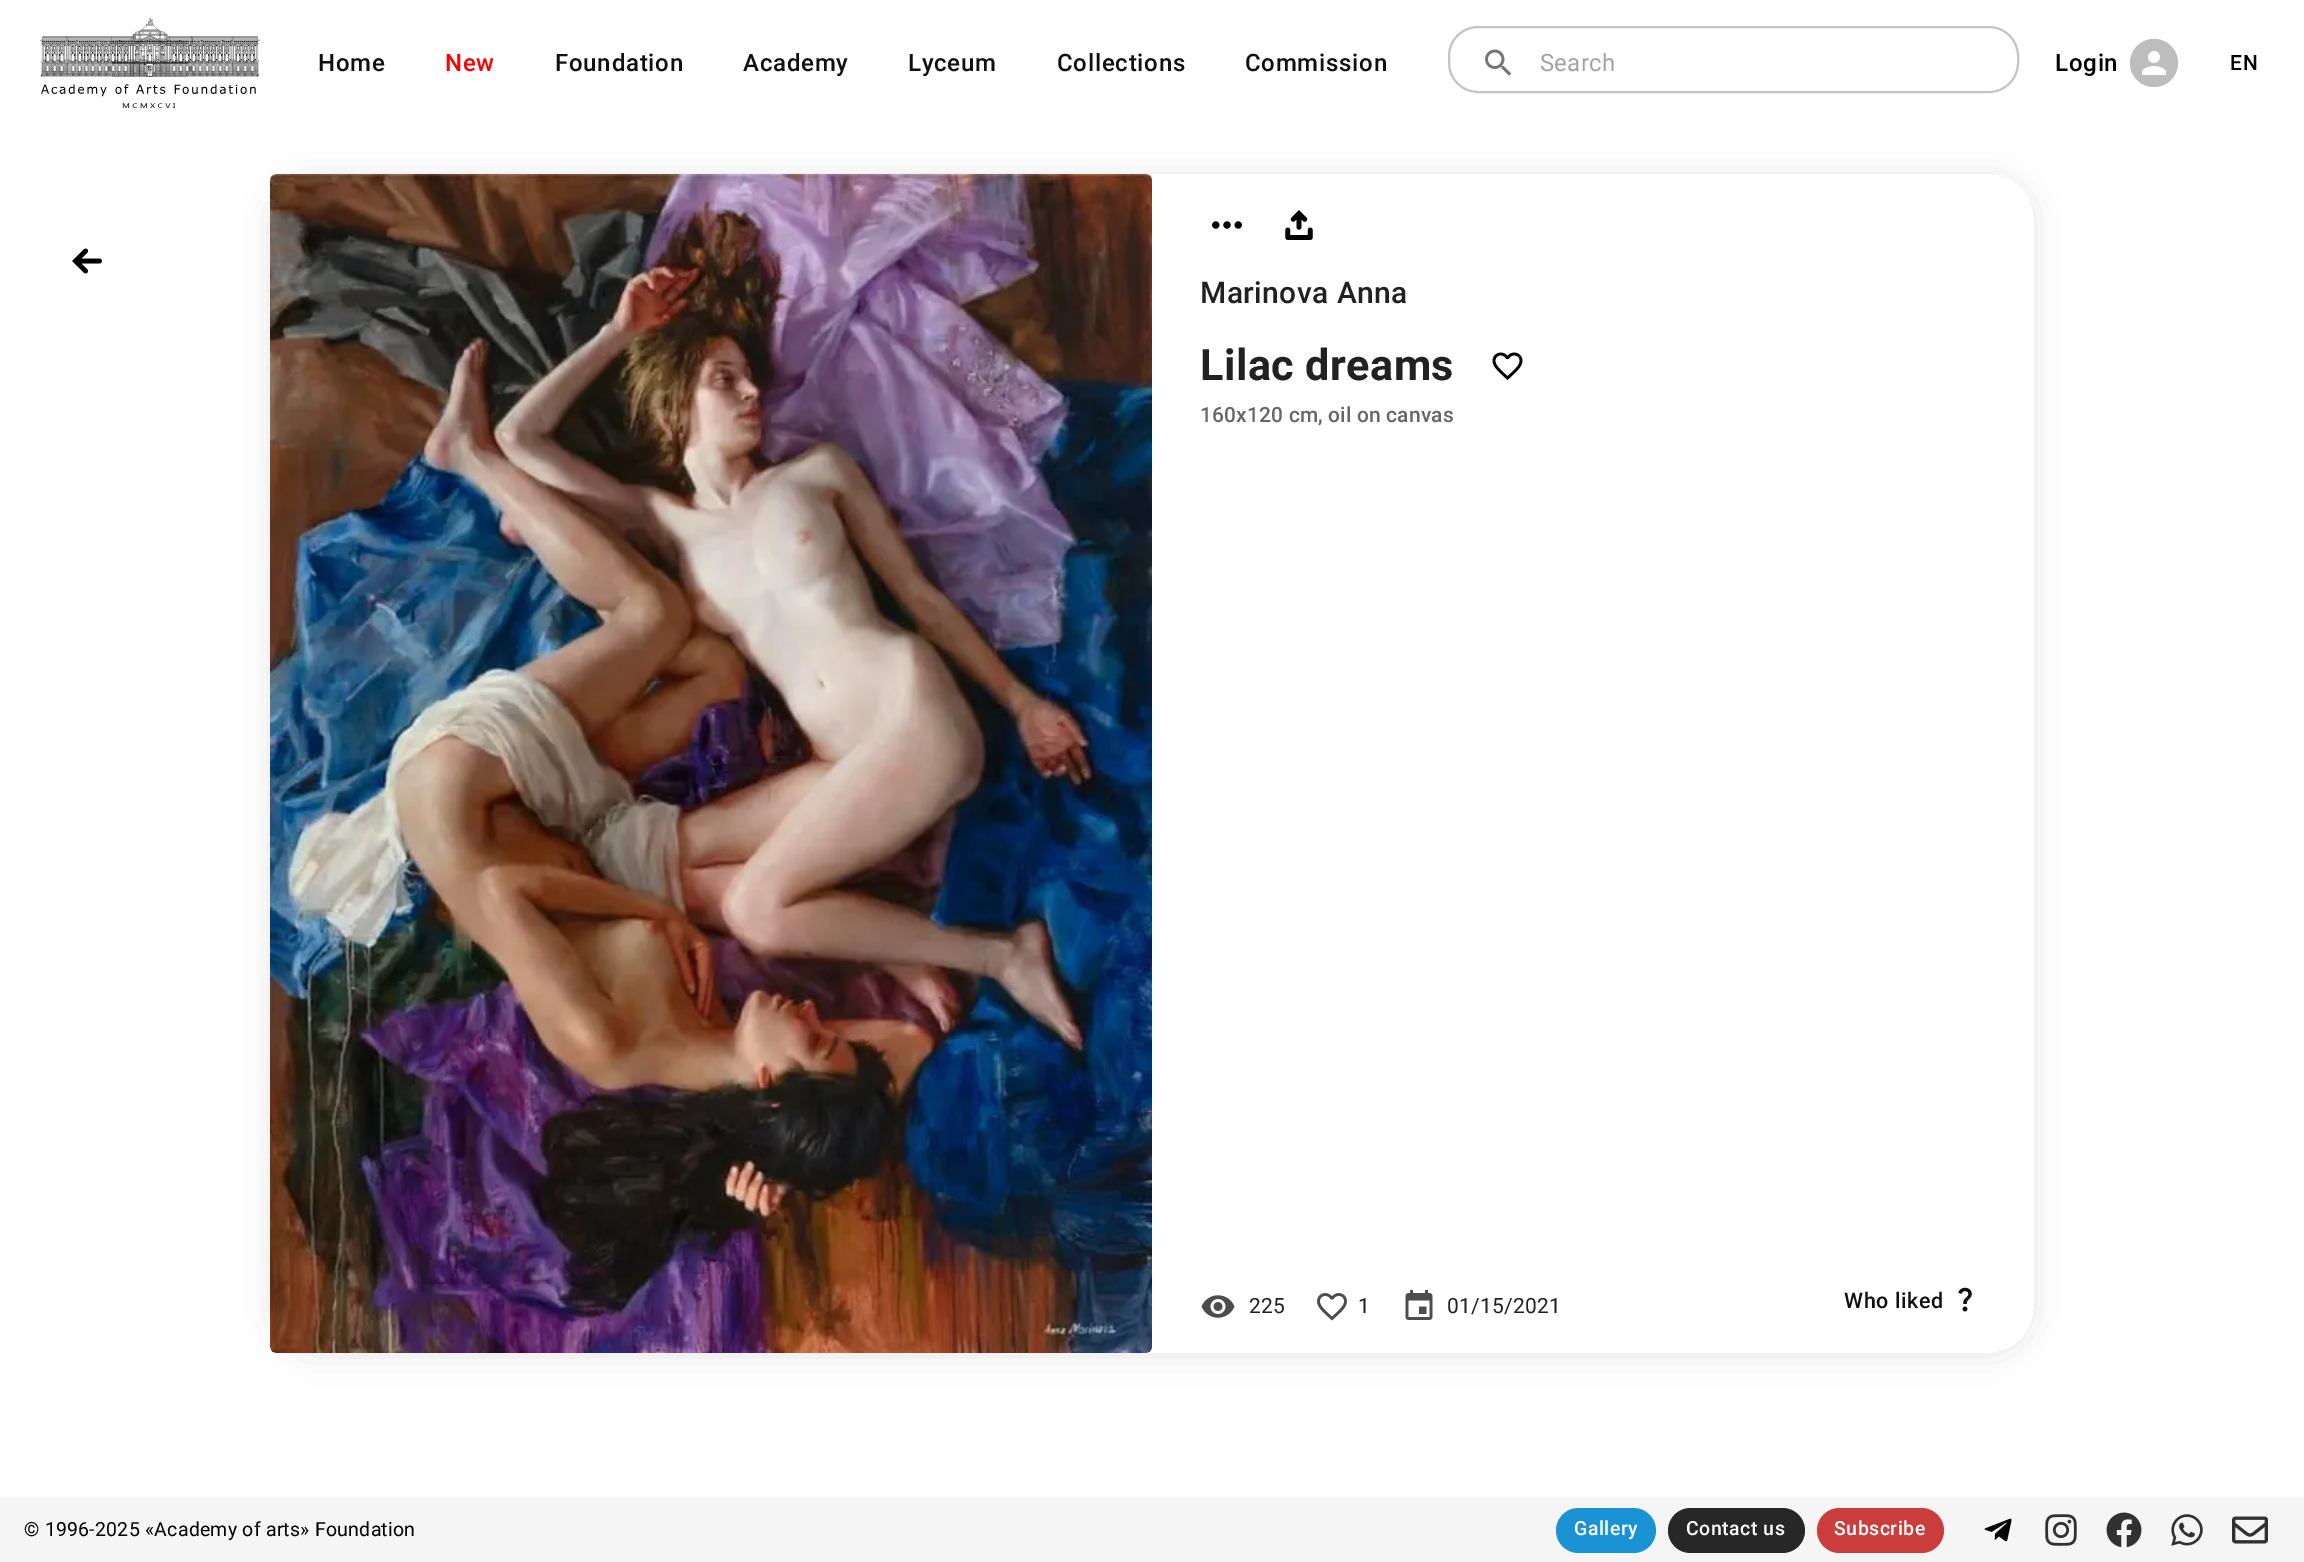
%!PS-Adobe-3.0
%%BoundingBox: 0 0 2304 1562
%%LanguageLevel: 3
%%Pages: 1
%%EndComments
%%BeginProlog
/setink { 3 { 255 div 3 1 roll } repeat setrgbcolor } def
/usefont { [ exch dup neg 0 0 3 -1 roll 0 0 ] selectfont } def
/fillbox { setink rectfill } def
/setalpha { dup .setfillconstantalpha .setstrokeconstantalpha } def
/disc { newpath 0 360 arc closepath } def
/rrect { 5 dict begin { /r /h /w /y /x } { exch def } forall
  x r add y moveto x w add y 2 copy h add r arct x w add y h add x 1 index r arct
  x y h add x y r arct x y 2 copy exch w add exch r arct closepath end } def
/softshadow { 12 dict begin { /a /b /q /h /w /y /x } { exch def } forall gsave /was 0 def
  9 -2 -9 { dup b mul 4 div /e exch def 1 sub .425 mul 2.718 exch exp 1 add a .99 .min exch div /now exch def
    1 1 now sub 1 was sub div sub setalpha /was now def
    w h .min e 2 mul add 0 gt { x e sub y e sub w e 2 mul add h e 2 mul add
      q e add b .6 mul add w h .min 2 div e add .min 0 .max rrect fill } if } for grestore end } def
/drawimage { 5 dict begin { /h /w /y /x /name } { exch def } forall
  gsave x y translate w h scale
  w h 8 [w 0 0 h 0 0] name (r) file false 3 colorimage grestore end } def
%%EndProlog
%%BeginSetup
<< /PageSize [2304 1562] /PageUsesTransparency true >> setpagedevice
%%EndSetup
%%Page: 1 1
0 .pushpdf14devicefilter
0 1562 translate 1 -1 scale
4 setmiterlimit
0 0 2304 1562 255 255 255 fillbox
(assets/img1.rgb) 40 18 220 90 drawimage
/Roboto-Medium 24 usefont
16 16 16 setink
318 71 moveto 0.75 0 (Home) ashow
255 0 0 setink
445 71 moveto 0.75 0 (New) ashow
16 16 16 setink
555 71 moveto 0.75 0 (Foundation) ashow
743 71 moveto 0.75 0 (Academy) ashow
908 71 moveto 0.75 0 (Lyceum) ashow
1057 71 moveto 0.75 0 (Collections) ashow
1245 71 moveto 0.75 0 (Commission) ashow
(assets/img2.rgb) 1485 49 27 27 drawimage
196 196 196 setink
2 setlinewidth
1449 27 569 65 29 rrect stroke
/Roboto-Regular 24 usefont
162 162 162 setink
1540 71 moveto 0.25 0 (Search) ashow
/Roboto-Medium 24 usefont
0 0 0 setink
2055 71 moveto 0.75 0 (Login) ashow
189 189 189 setink
2154 63 24 disc fill
(assets/img3.rgb) 2142 51 24 24 drawimage
/Roboto-Medium 21 usefont
0 0 0 setink
2230 70 moveto 1 0 (EN) ashow
(assets/img4.rgb) 72 248 30 26 drawimage
gsave
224 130 moveto 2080 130 lineto 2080 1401 lineto 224 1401 lineto closepath 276 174 moveto 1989 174 lineto 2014 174 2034 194 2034 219 curveto 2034 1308 lineto 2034 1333 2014 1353 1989 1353 curveto 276 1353 lineto 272.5 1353 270 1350.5 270 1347 curveto 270 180 lineto 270 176.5 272.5 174 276 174 curveto closepath eoclip newpath
270 176 1764 1179 45 15 0.1 softshadow
grestore
(assets/img5.rgb) 270 174 882 1179 drawimage
(assets/img6.rgb) 1212 221 30 8 drawimage
(assets/img7.rgb) 1285 210 28 30 drawimage
/Roboto-Medium 30 usefont
33 33 33 setink
1200 303 moveto 0.4 0 (Marinova Anna) ashow
/Roboto-Bold 43.25 usefont
1200 380 moveto 0.4 0 (Lilac dreams) ashow
(assets/img8.rgb) 1492 352 31 28 drawimage
/Roboto-Medium 21 usefont
102 102 102 setink
1200 422 moveto 0.15 0 (160x120 cm, oil on canvas) ashow
(assets/img9.rgb) 1201 1295 34 23 drawimage
/Roboto-Regular 21 usefont
33 33 33 setink
1249 1313 moveto 0.25 0 (225) ashow
(assets/img10.rgb) 1317 1293 30 28 drawimage
1358 1313 moveto 0.25 0 (1) ashow
(assets/img11.rgb) 1405 1290 28 30 drawimage
1447 1313 moveto 0.25 0 (01/15/2021) ashow
/Roboto-Medium 21.5 usefont
16 16 16 setink
1844 1308 moveto 0.6 0 (Who liked) ashow
(assets/img12.rgb) 1958 1287 14 25 drawimage
0 1497 2304 65 245 245 245 fillbox
/Roboto-Regular 19.5 usefont
0 0 0 setink
24 1536 moveto 0.25 0 (© 1996-2025 «Academy of arts» Foundation) ashow
26 147 213 setink
1556 1508 100 45 22.5 rrect fill
/Roboto-Medium 19.5 usefont
254 254 254 setink
1574 1535 moveto 0.5 0 (Gallery) ashow
39 39 39 setink
1668 1508 137 45 22.5 rrect fill
254 254 254 setink
1686 1535 moveto 0.5 0 (Contact us) ashow
203 61 61 setink
1817 1508 127 45 22.5 rrect fill
254 254 254 setink
1834 1535 moveto 0.5 0 (Subscribe) ashow
(assets/img13.rgb) 1984 1518 28 24 drawimage
(assets/img14.rgb) 2045 1514 32 32 drawimage
(assets/img15.rgb) 2106 1512 36 36 drawimage
(assets/img16.rgb) 2171 1514 32 32 drawimage
(assets/img17.rgb) 2232 1516 36 28 drawimage
.poppdf14devicefilter showpage
%%EOF
